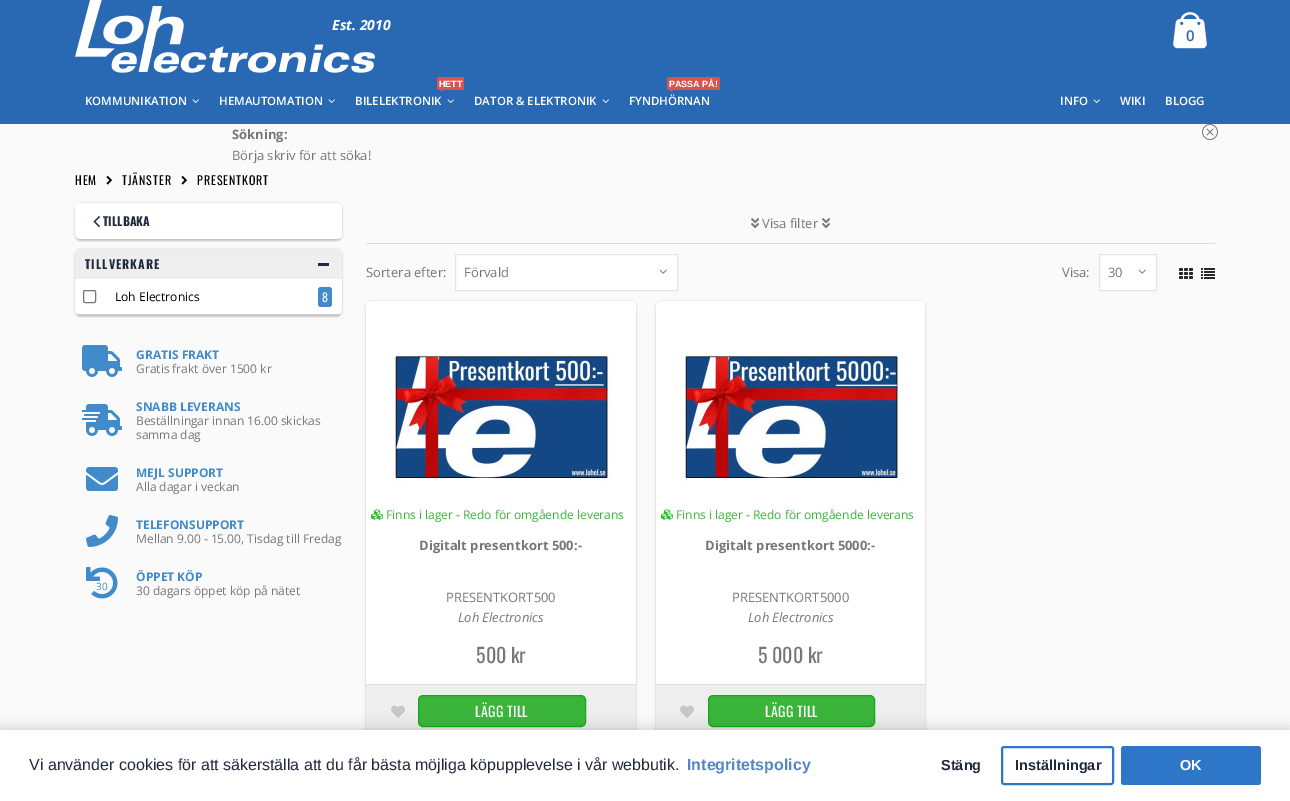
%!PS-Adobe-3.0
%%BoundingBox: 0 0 1290 801
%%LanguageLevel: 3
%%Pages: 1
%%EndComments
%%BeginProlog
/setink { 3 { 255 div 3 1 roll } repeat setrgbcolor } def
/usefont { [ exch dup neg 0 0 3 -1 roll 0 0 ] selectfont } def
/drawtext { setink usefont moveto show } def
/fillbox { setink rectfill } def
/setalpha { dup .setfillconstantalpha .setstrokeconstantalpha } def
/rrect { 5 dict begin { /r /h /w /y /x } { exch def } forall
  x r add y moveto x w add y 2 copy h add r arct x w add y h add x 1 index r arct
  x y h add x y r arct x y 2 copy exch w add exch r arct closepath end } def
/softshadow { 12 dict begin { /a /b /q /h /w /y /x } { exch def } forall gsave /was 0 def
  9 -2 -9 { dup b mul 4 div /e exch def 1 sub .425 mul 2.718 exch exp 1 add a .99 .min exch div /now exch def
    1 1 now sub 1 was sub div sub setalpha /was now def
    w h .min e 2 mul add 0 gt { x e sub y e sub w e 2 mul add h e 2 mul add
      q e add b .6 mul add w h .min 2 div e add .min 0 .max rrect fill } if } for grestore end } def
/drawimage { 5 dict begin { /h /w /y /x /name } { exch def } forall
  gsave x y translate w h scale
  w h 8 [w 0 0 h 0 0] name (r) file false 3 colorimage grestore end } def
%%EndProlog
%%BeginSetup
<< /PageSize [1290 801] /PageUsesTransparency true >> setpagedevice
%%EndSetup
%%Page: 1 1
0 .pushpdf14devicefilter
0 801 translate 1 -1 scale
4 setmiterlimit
0 0 1290 801 250 250 250 fillbox
0 0 1290 124 41 105 179 fillbox
(assets/img1.rgb) 75 0 300 73 drawimage
(Est. 2010) 332 30 /OpenSans-BoldItalic 14 255 255 255 drawtext
(assets/img2.rgb) 1173 12 34 37 drawimage
(0) 1186 41 /OpenSans-SemiBold 15 41 105 179 drawtext
(KOMMUNIKATION) 85 105 /OpenSans-SemiBold 11.5 255 255 255 drawtext
(assets/img3.rgb) 192 99 7 4 drawimage
(HEMAUTOMATION) 219 105 /OpenSans-SemiBold 11.5 255 255 255 drawtext
(assets/img3.rgb) 328 99 7 4 drawimage
217 83 79 setink
437 77 27 13 2 rrect fill
(HETT) 439 87 /LiberationSans-Bold 9 255 255 255 drawtext
217 83 79 setink
439 88 moveto 444 88 lineto 441.5 92 lineto closepath fill
(BILELEKTRONIK) 355 105 /OpenSans-SemiBold 11.5 255 255 255 drawtext
(assets/img3.rgb) 447 99 7 4 drawimage
(DATOR & ELEKTRONIK) 474 105 /OpenSans-SemiBold 11.5 255 255 255 drawtext
(assets/img3.rgb) 602 99 7 4 drawimage
217 83 79 setink
667 77 53 13 2 rrect fill
(PASSA PÅ!) 669 87 /LiberationSans-Bold 9 255 255 255 drawtext
217 83 79 setink
669 88 moveto 674 88 lineto 671.5 92 lineto closepath fill
(FYNDHÖRNAN) 629 105 /OpenSans-SemiBold 11.5 255 255 255 drawtext
(INFO) 1060 105 /OpenSans-SemiBold 11.5 255 255 255 drawtext
(assets/img3.rgb) 1093 99 7 4 drawimage
(WIKI) 1120 105 /OpenSans-SemiBold 11.5 255 255 255 drawtext
(BLOGG) 1165 105 /OpenSans-SemiBold 11.5 255 255 255 drawtext
(Sökning:) 232 139 /OpenSans-Bold 13 119 119 119 drawtext
(assets/img4.rgb) 1202 124 16 16 drawimage
(Börja skriv för att söka!) 232 160 /OpenSans-Regular 13 119 119 119 drawtext
/Oswald-Regular 12 usefont
0 0 0 setink
75 185 moveto 0.9 0 (HEM) ashow
(assets/img5.rgb) 106 176 6 9 drawimage
122 185 moveto 0.9 0 (TJÄNSTER) ashow
(assets/img5.rgb) 181 176 6 9 drawimage
197 185 moveto 0.9 0 (PRESENTKORT) ashow
76 207 265 34 4 0.5 0.12 softshadow
75 203 267 36 5 0.5 0.12 softshadow
75 204 267 36 5 1.5 0.1 softshadow
255 255 255 setink
75 203 267 36 5 rrect fill
(assets/img6.rgb) 93 216 7 12 drawimage
(TILLBAKA) 103 226 /Oswald-Bold 12 33 41 60 drawtext
0 0 0 setink
76 253 265 64 4 0.5 0.12 softshadow
75 249 267 66 5 0.5 0.12 softshadow
75 250 267 66 5 1.5 0.1 softshadow
255 255 255 setink
75 249 267 66 5 rrect fill
238 238 238 setink
80 249 moveto 337 249 lineto 340 249 342 251 342 254 curveto 342 279 lineto 75 279 lineto 75 254 lineto 75 251 77 249 80 249 curveto closepath fill
33 41 60 setink
85 269 moveto 1 0 (TILLVERKARE) ashow
318 263 11 3 33 41 60 fillbox
gsave
75 249 267 66 5 rrect clip newpath
75 314 267 1 204 204 204 fillbox
grestore
118 118 118 setink
83.5 290.5 12 12 1.5 rrect stroke
(Loh Electronics) 115 301 /OpenSans-Regular 12 0 0 0 drawtext
66 139 202 setink
318 287 14 20 3 rrect fill
(8) 322 302 /Oswald-Regular 12 255 255 255 drawtext
(assets/img7.rgb) 82 345 40 32 drawimage
(GRATIS FRAKT) 136 359 /OpenSans-Bold 12 66 139 202 drawtext
(Gratis frakt över 1500 kr) 136 373 /OpenSans-Regular 12 119 119 119 drawtext
(assets/img8.rgb) 82 404 40 32 drawimage
(SNABB LEVERANS) 136 411 /OpenSans-Bold 12 66 139 202 drawtext
(Beställningar innan 16.00 skickas) 136 425 /OpenSans-Regular 12 119 119 119 drawtext
(samma dag) 136 439 /OpenSans-Regular 12 119 119 119 drawtext
(assets/img9.rgb) 86 467 32 24 drawimage
(MEJL SUPPORT) 136 477 /OpenSans-Bold 12 66 139 202 drawtext
(Alla dagar i veckan) 136 491 /OpenSans-Regular 12 119 119 119 drawtext
(assets/img10.rgb) 86 515 32 32 drawimage
(TELEFONSUPPORT) 136 529 /OpenSans-Bold 12 66 139 202 drawtext
(Mellan 9.00 - 15.00, Tisdag till Fredag) 136 543 /OpenSans-Regular 12 119 119 119 drawtext
(assets/img11.rgb) 86 567 32 32 drawimage
(30) 96 590 /OpenSans-Regular 10 66 139 202 drawtext
(ÖPPET KÖP) 136 581 /OpenSans-Bold 12 66 139 202 drawtext
(30 dagars öppet köp på nätet) 136 595 /OpenSans-Regular 12 119 119 119 drawtext
366 243 849 1 221 221 221 fillbox
(assets/img12.rgb) 751 218 9 11 drawimage
(Visa filter) 762 228 /OpenSans-Regular 13 119 119 119 drawtext
(assets/img12.rgb) 822 218 9 11 drawimage
(Sortera efter:) 366 277 /OpenSans-Regular 13 119 119 119 drawtext
255 255 255 setink
455.5 254.5 moveto 677.5 254.5 lineto 677.5 290.5 lineto 455.5 290.5 lineto closepath gsave fill grestore
228 228 228 setink
stroke
(Förvald) 464 277 /OpenSans-Regular 13 119 119 119 drawtext
(assets/img13.rgb) 659 269 8 5 drawimage
(Visa:) 1062 277 /OpenSans-Regular 13 119 119 119 drawtext
255 255 255 setink
1099.5 254.5 moveto 1156.5 254.5 lineto 1156.5 290.5 lineto 1099.5 290.5 lineto closepath gsave fill grestore
228 228 228 setink
stroke
(30) 1108 277 /OpenSans-Regular 13 119 119 119 drawtext
(assets/img13.rgb) 1138 269 8 5 drawimage
(assets/img14.rgb) 1179 268 14 11 drawimage
(assets/img15.rgb) 1201 268 14 11 drawimage
0 0 0 setink
366 301 270 438 5 0.5 0.12 softshadow
366 302 270 438 5 1.5 0.1 softshadow
255 255 255 setink
366 301 270 438 5 rrect fill
(assets/img16.rgb) 395 355 216 128 drawimage
(assets/img17.rgb) 371 509 12 11 drawimage
(Finns i lager - Redo för omgående leverans) 386 519 /OpenSans-Regular 12 58 181 58 drawtext
(Digitalt presentkort 500:-) 419 550 /OpenSans-Bold 13 119 119 119 drawtext
(PRESENTKORT500) 446 602 /OpenSans-Regular 13 119 119 119 drawtext
(Loh Electronics) 458 622 /OpenSans-Italic 13 119 119 119 drawtext
(500 kr) 476 663 /Oswald-Regular 20 119 119 119 drawtext
366 685 270 45 238 238 238 fillbox
366 684 270 1 221 221 221 fillbox
(assets/img18.rgb) 391 705 14 13 drawimage
58 181 58 setink
418.5 695.5 167 31 4.5 rrect gsave fill grestore
19 171 19 setink
stroke
/Oswald-Regular 14 usefont
255 255 255 setink
475 717 moveto 0.25 0 (LÄGG TILL) ashow
0 0 0 setink
656 301 269 438 5 0.5 0.12 softshadow
656 302 269 438 5 1.5 0.1 softshadow
255 255 255 setink
656 301 269 438 5 rrect fill
(assets/img19.rgb) 685 355 216 128 drawimage
(assets/img17.rgb) 661 509 12 11 drawimage
(Finns i lager - Redo för omgående leverans) 676 519 /OpenSans-Regular 12 58 181 58 drawtext
(Digitalt presentkort 5000:-) 705 550 /OpenSans-Bold 13 119 119 119 drawtext
(PRESENTKORT5000) 732 602 /OpenSans-Regular 13 119 119 119 drawtext
(Loh Electronics) 748 622 /OpenSans-Italic 13 119 119 119 drawtext
(5 000 kr) 758 663 /Oswald-Regular 20 119 119 119 drawtext
656 685 269 45 238 238 238 fillbox
656 684 269 1 221 221 221 fillbox
(assets/img18.rgb) 680 705 14 13 drawimage
58 181 58 setink
708.5 695.5 166 31 4.5 rrect gsave fill grestore
19 171 19 setink
stroke
/Oswald-Regular 14 usefont
255 255 255 setink
765 717 moveto 0.25 0 (LÄGG TILL) ashow
0 0 0 setink
0 730 1290 71 0 7.5 0.2 softshadow
0 730 1290 71 255 255 255 fillbox
(Vi använder cookies för att säkerställa att du får bästa möjliga köpupplevelse i vår webbutik.) 29 770 /LiberationSans-Regular 16 33 41 60 drawtext
(Integritetspolicy) 687 770 /LiberationSans-Bold 16 84 135 194 drawtext
(Stäng) 941 770 /LiberationSans-Bold 14.5 33 41 60 drawtext
46 118 199 setink
2 setlinewidth
1002 747 111 37 2 rrect stroke
(Inställningar) 1015 770 /LiberationSans-Bold 14.5 33 41 60 drawtext
46 118 199 setink
1121 746 140 39 3 rrect fill
(OK) 1180 770 /LiberationSans-Bold 14.5 255 255 255 drawtext
.poppdf14devicefilter showpage
%%EOF
